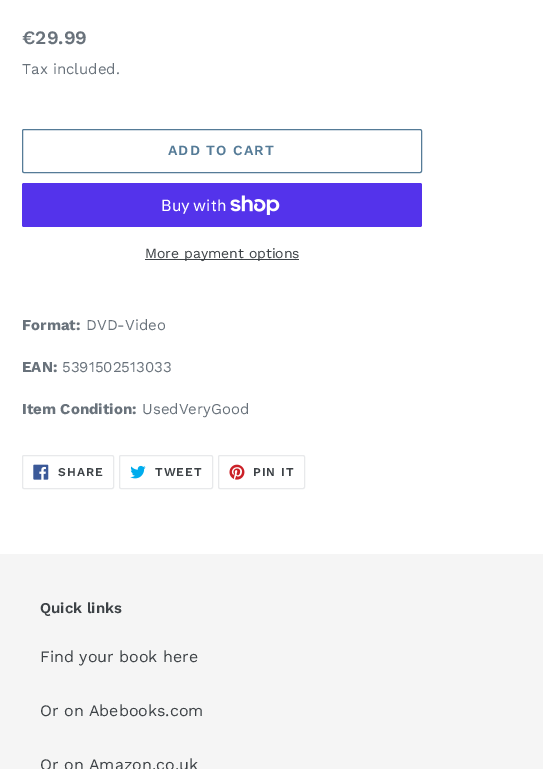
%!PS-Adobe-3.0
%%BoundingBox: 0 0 543 769
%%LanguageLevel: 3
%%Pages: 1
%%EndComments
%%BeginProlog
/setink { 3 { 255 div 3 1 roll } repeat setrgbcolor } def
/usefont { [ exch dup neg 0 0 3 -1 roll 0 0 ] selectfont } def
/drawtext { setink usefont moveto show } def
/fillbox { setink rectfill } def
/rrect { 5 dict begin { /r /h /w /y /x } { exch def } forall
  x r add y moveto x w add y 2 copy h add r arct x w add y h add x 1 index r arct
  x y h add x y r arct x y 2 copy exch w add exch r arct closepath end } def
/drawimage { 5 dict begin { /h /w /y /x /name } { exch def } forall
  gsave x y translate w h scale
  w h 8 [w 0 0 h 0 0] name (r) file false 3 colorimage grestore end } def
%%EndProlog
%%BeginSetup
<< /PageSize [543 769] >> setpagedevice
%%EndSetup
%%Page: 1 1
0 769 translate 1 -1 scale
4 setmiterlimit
0 0 543 769 255 255 255 fillbox
(€29.99) 22 44 /WorkSans-SemiBold 19 105 114 123 drawtext
(Tax included.) 22 74 /WorkSans-Regular 15 105 114 123 drawtext
85 123 151 setink
22.5 129.5 399 43 1.5 rrect stroke
/WorkSans-SemiBold 14 usefont
168 155 moveto 1.1 0 (ADD TO CART) ashow
84 51 235 setink
22 183 400 44 2 rrect fill
(Buy with) 161 211 /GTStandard-Regular 16 255 255 255 drawtext
(assets/img1.rgb) 230 195 50 20 drawimage
145 259 154 1 61 66 70 fillbox
(More payment options) 145 258 /WorkSans-Regular 14 61 66 70 drawtext
(Format:) 22 330 /WorkSans-Bold 15 105 114 123 drawtext
(DVD-Video) 86 330 /WorkSans-Regular 15 105 114 123 drawtext
(EAN:) 22 372 /WorkSans-Bold 15 105 114 123 drawtext
(5391502513033) 62 372 /WorkSans-Regular 15 105 114 123 drawtext
(Item Condition:) 22 414 /WorkSans-Bold 15 105 114 123 drawtext
(UsedVeryGood) 142 414 /WorkSans-Regular 15 105 114 123 drawtext
232 233 235 setink
22.5 455.5 91 33 1.5 rrect stroke
(assets/img2.rgb) 33 464 16 16 drawimage
/WorkSans-SemiBold 12 usefont
61 66 70 setink
58 476 moveto 1 0 (SHARE) ashow
232 233 235 setink
119.5 455.5 93 33 1.5 rrect stroke
(assets/img3.rgb) 130 465 16 14 drawimage
61 66 70 setink
155 476 moveto 1 0 (TWEET) ashow
232 233 235 setink
218.5 455.5 86 33 1.5 rrect stroke
(assets/img4.rgb) 229 464 16 16 drawimage
61 66 70 setink
253 476 moveto 1 0 (PIN IT) ashow
0 554 543 215 245 245 245 fillbox
(Quick links) 40 613 /WorkSans-SemiBold 15 61 66 70 drawtext
(Find your book here) 40 662 /WorkSans-Regular 16 61 66 70 drawtext
(Or on Abebooks.com) 40 716 /WorkSans-Regular 16 61 66 70 drawtext
(Or on Amazon.co.uk) 40 770 /WorkSans-Regular 16 61 66 70 drawtext
showpage
%%EOF
